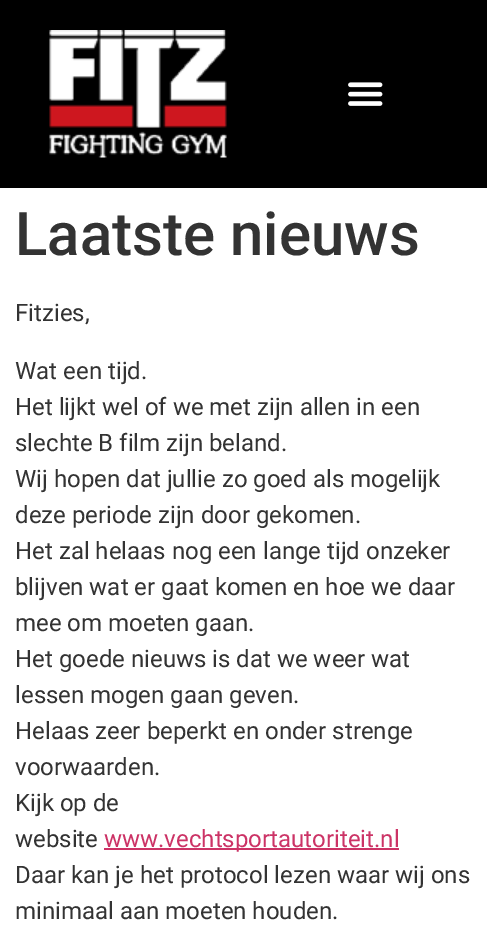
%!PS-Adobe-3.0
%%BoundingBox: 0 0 487 949
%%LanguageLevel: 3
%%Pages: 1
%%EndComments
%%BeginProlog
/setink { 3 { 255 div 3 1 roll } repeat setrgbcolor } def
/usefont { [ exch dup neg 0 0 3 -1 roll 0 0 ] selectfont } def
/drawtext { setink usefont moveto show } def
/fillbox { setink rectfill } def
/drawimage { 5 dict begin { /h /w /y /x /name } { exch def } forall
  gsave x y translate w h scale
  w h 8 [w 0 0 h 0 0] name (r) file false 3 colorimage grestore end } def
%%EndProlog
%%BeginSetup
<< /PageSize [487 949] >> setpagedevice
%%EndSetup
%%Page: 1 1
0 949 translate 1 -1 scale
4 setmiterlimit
0 0 487 949 255 255 255 fillbox
0 0 487 188 0 0 0 fillbox
(assets/img1.rgb) 49 30 178 128 drawimage
(assets/img2.rgb) 348 82 35 24 drawimage
(Laatste nieuws) 15 255 /Roboto-Medium 60 51 51 51 drawtext
(Fitzies,) 15 321 /Roboto-Regular 24 51 51 51 drawtext
(Wat een tijd.) 15 379 /Roboto-Regular 24 51 51 51 drawtext
(Het lijkt wel of we met zijn allen in een) 15 415 /Roboto-Regular 24 51 51 51 drawtext
(slechte B film zijn beland.) 15 451 /Roboto-Regular 24 51 51 51 drawtext
(Wij hopen dat jullie zo goed als mogelijk) 15 487 /Roboto-Regular 24 51 51 51 drawtext
(deze periode zijn door gekomen.) 15 523 /Roboto-Regular 24 51 51 51 drawtext
(Het zal helaas nog een lange tijd onzeker) 15 559 /Roboto-Regular 24 51 51 51 drawtext
(blijven wat er gaat komen en hoe we daar) 15 595 /Roboto-Regular 24 51 51 51 drawtext
(mee om moeten gaan.) 15 631 /Roboto-Regular 24 51 51 51 drawtext
(Het goede nieuws is dat we weer wat) 15 667 /Roboto-Regular 24 51 51 51 drawtext
(lessen mogen gaan geven.) 15 703 /Roboto-Regular 24 51 51 51 drawtext
(Helaas zeer beperkt en onder strenge) 15 739 /Roboto-Regular 24 51 51 51 drawtext
(voorwaarden.) 15 775 /Roboto-Regular 24 51 51 51 drawtext
(Kijk op de) 15 811 /Roboto-Regular 24 51 51 51 drawtext
(website) 15 847 /Roboto-Regular 24 51 51 51 drawtext
104 848 295 2 204 51 102 fillbox
(www.vechtsportautoriteit.nl) 104 847 /Roboto-Regular 24 204 51 102 drawtext
(Daar kan je het protocol lezen waar wij ons) 15 883 /Roboto-Regular 24 51 51 51 drawtext
(minimaal aan moeten houden.) 15 919 /Roboto-Regular 24 51 51 51 drawtext
showpage
%%EOF
